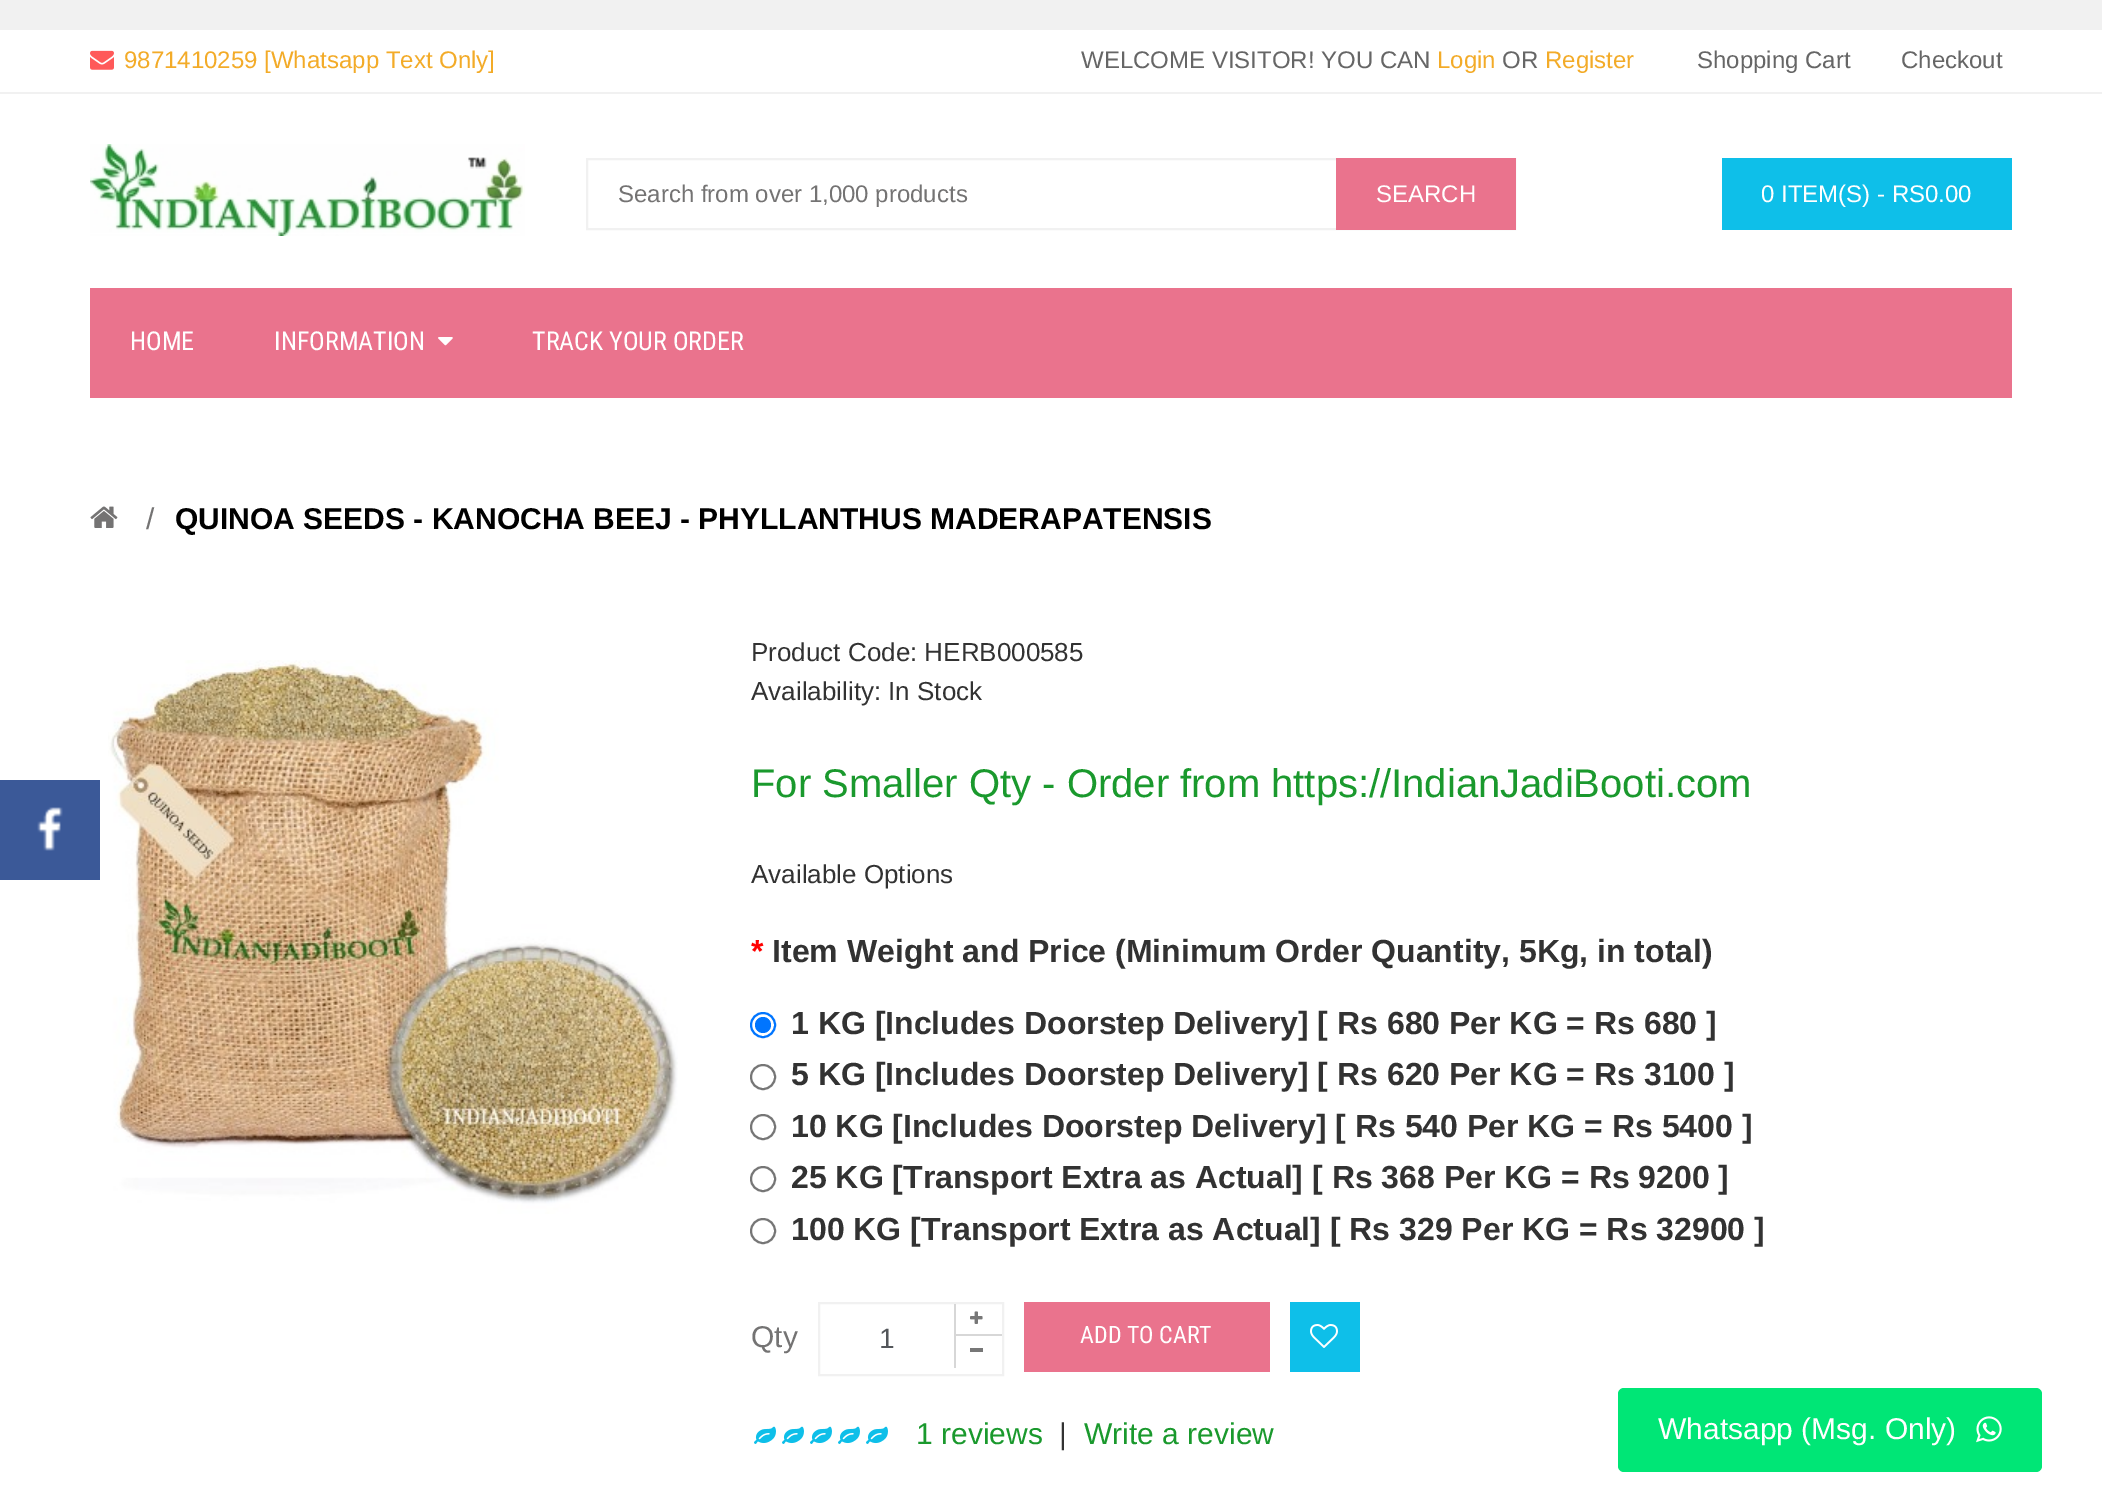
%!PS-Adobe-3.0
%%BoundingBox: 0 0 2102 1511
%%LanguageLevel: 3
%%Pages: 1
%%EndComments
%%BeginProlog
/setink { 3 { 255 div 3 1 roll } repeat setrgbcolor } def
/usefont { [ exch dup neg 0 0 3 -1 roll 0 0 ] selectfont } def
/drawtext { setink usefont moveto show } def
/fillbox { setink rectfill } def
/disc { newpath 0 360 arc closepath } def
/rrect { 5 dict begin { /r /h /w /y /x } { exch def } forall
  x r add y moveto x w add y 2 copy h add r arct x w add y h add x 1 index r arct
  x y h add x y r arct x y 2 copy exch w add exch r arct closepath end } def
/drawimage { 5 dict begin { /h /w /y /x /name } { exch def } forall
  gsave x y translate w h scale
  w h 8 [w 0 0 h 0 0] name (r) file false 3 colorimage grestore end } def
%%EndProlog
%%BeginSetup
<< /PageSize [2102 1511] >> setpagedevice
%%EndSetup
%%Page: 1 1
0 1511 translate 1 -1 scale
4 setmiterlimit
0 0 2102 1511 241 241 241 fillbox
0 30 2102 1481 255 255 255 fillbox
0 780 100 100 59 89 152 fillbox
(assets/img1.rgb) 37 807 26 44 drawimage
0 92 2102 2 241 241 241 fillbox
(assets/img2.rgb) 90 50 24 20 drawimage
(9871410259 [Whatsapp Text Only]) 124 68 /LiberationSans-Regular 24 243 171 40 drawtext
(WELCOME VISITOR! YOU CAN) 1081 68 /LiberationSans-Regular 24 102 102 102 drawtext
(Login) 1437 68 /LiberationSans-Regular 24 243 171 40 drawtext
(OR) 1502 68 /LiberationSans-Regular 24 102 102 102 drawtext
(Register) 1545 68 /LiberationSans-Regular 24 243 171 40 drawtext
(Shopping Cart) 1697 68 /LiberationSans-Regular 24 102 102 102 drawtext
(Checkout) 1901 68 /LiberationSans-Regular 24 102 102 102 drawtext
(assets/img3.rgb) 90 144 435 92 drawimage
241 241 241 setink
2 setlinewidth
587 159 928 70 rectstroke
(Search from over 1,000 products) 618 202 /LiberationSans-Regular 24 116 115 115 drawtext
1336 158 180 72 234 115 141 fillbox
(SEARCH) 1376 202 /LiberationSans-Regular 24 255 255 255 drawtext
1722 158 290 72 14 191 233 fillbox
(0 ITEM\(S\) - RS0.00) 1761 202 /LiberationSans-Regular 24 255 255 255 drawtext
90 288 1922 110 234 115 141 fillbox
(HOME) 130 350 /RobotoCondensed-Regular 26 255 255 255 drawtext
(INFORMATION) 274 350 /RobotoCondensed-Regular 26 255 255 255 drawtext
(assets/img4.rgb) 438 337 15 9 drawimage
(TRACK YOUR ORDER) 532 350 /RobotoCondensed-Regular 26 255 255 255 drawtext
(assets/img5.rgb) 90 506 28 22 drawimage
(/) 146 529 /LiberationSans-Regular 30 116 115 115 drawtext
(QUINOA SEEDS - KANOCHA BEEJ - PHYLLANTHUS MADERAPATENSIS) 175 529 /LiberationSans-Bold 30 0 0 0 drawtext
(assets/img6.rgb) 108 660 570 554 drawimage
(Product Code: HERB000585) 751 661 /LiberationSans-Regular 26 50 50 50 drawtext
(Availability: In Stock) 751 700 /LiberationSans-Regular 26 50 50 50 drawtext
(For Smaller Qty - Order from https://IndianJadiBooti.com) 751 797 /LiberationSans-Regular 40 26 153 45 drawtext
(Available Options) 751 883 /LiberationSans-Regular 26 50 50 50 drawtext
(*) 751 962 /LiberationSans-Bold 32 255 0 0 drawtext
(Item Weight and Price \(Minimum Order Quantity, 5Kg, in total\)) 772 962 /LiberationSans-Bold 32 50 50 50 drawtext
0 117 255 setink
763 1025 12 disc stroke
763 1025 8 disc fill
(1 KG [Includes Doorstep Delivery] [ Rs 680 Per KG = Rs 680 ]) 791 1034 /LiberationSans-Bold 32 50 50 50 drawtext
118 118 118 setink
763 1077 12 disc stroke
(5 KG [Includes Doorstep Delivery] [ Rs 620 Per KG = Rs 3100 ]) 791 1085 /LiberationSans-Bold 32 50 50 50 drawtext
118 118 118 setink
763 1127 12 disc stroke
(10 KG [Includes Doorstep Delivery] [ Rs 540 Per KG = Rs 5400 ]) 791 1137 /LiberationSans-Bold 32 50 50 50 drawtext
118 118 118 setink
763 1179 12 disc stroke
(25 KG [Transport Extra as Actual] [ Rs 368 Per KG = Rs 9200 ]) 791 1188 /LiberationSans-Bold 32 50 50 50 drawtext
118 118 118 setink
763 1231 12 disc stroke
(100 KG [Transport Extra as Actual] [ Rs 329 Per KG = Rs 32900 ]) 791 1240 /LiberationSans-Bold 32 50 50 50 drawtext
(Qty) 751 1347 /LiberationSans-Regular 30 116 115 115 drawtext
241 241 241 setink
819 1303 184 72 rectstroke
(1) 879 1348 /LiberationSans-Regular 28 83 86 90 drawtext
954 1334 48 2 215 215 215 fillbox
954 1304 2 64 215 215 215 fillbox
(assets/img7.rgb) 970 1311 13 13 drawimage
970 1348 13 4 119 119 119 fillbox
1024 1302 246 70 234 115 141 fillbox
(ADD TO CART) 1080 1343 /RobotoCondensed-Regular 24 255 255 255 drawtext
1290 1302 70 70 14 191 233 fillbox
(assets/img8.rgb) 1310 1324 28 24 drawimage
(assets/img9.rgb) 754 1426 22 18 drawimage
(assets/img9.rgb) 782 1426 22 18 drawimage
(assets/img9.rgb) 810 1426 22 18 drawimage
(assets/img9.rgb) 838 1426 22 18 drawimage
(assets/img9.rgb) 866 1426 22 18 drawimage
(1 reviews) 916 1444 /LiberationSans-Regular 30 26 153 45 drawtext
(|) 1059 1444 /LiberationSans-Regular 30 50 50 50 drawtext
(Write a review) 1084 1444 /LiberationSans-Regular 30 26 153 45 drawtext
0 230 118 setink
1618 1388 424 84 6 rrect fill
(Whatsapp \(Msg. Only\)) 1658 1439 /LiberationSans-Regular 30 255 255 255 drawtext
(assets/img10.rgb) 1976 1416 26 27 drawimage
showpage
%%EOF
